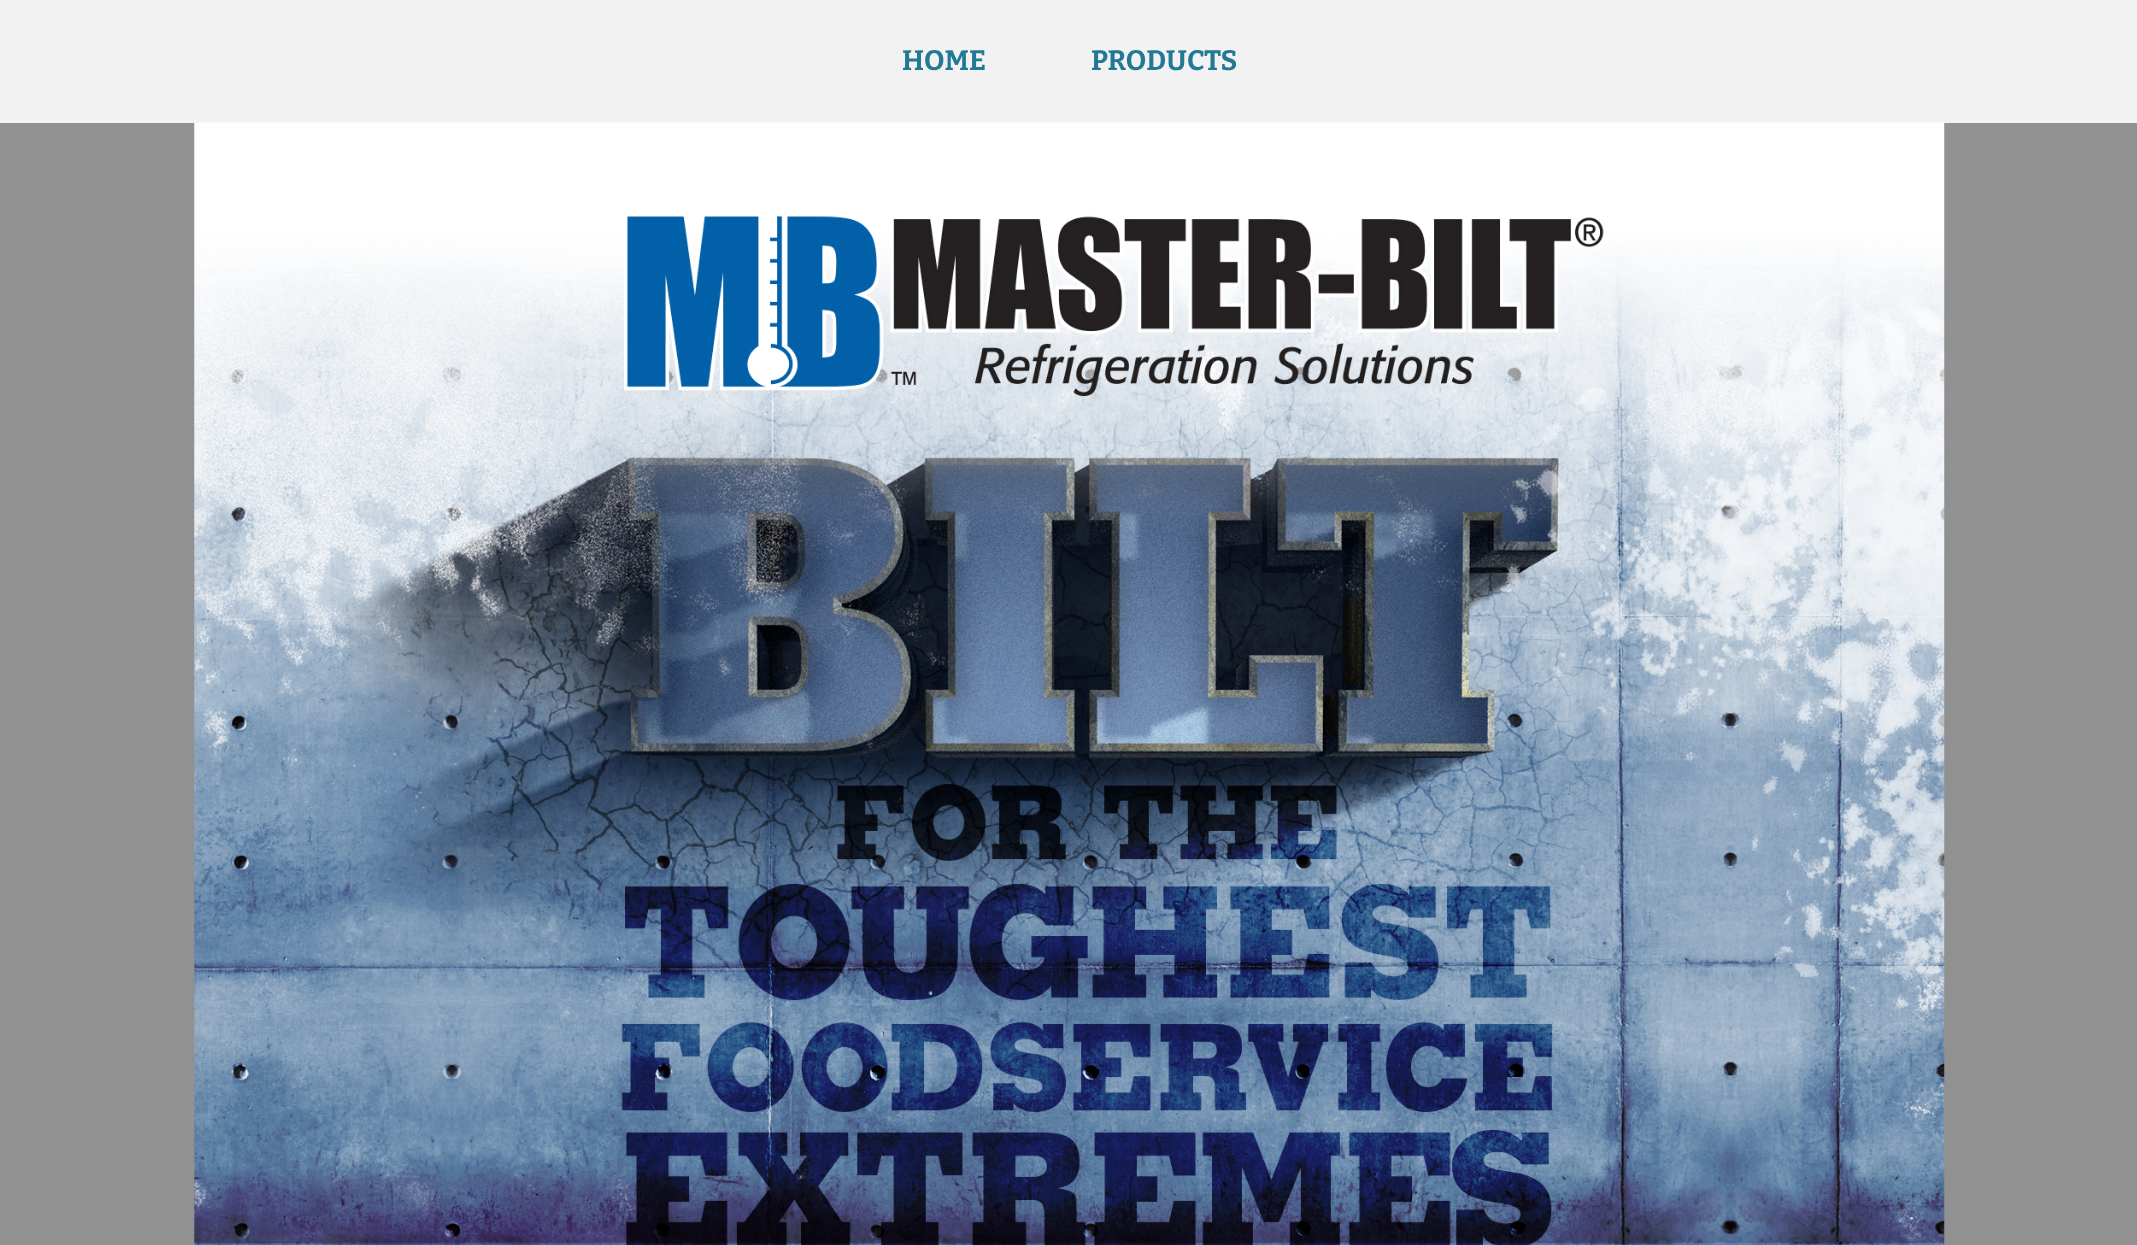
<!DOCTYPE html>
<meta charset="utf-8">
<style>body { margin: 0 } canvas { display: block }</style>
<canvas id="canvas" width="2137" height="1245"></canvas>
<script type="module">
  const canvas = document.getElementById("canvas");
  const ctx = canvas.getContext("2d");
  ctx.miterLimit = 4;
  ctx.fontKerning = "normal";
  async function loadImage(src) {
    const img = new Image();
    img.src = src;
    await img.decode();
    return img;
  }

  ctx.fillStyle = "#919191";
  ctx.fillRect(0, 0, 2137, 1245);
  ctx.fillStyle = "#f2f2f2";
  ctx.fillRect(0, 0, 2137, 123);
  ctx.font = "bold 28px Bitter";
  ctx.fillStyle = "#217996";
  ctx.fillText("HOME", 902, 70);
  ctx.fillText("PRODUCTS", 1091, 70);
  ctx.drawImage(await loadImage("img1.png"), 194, 122, 1751, 1123);
</script>
